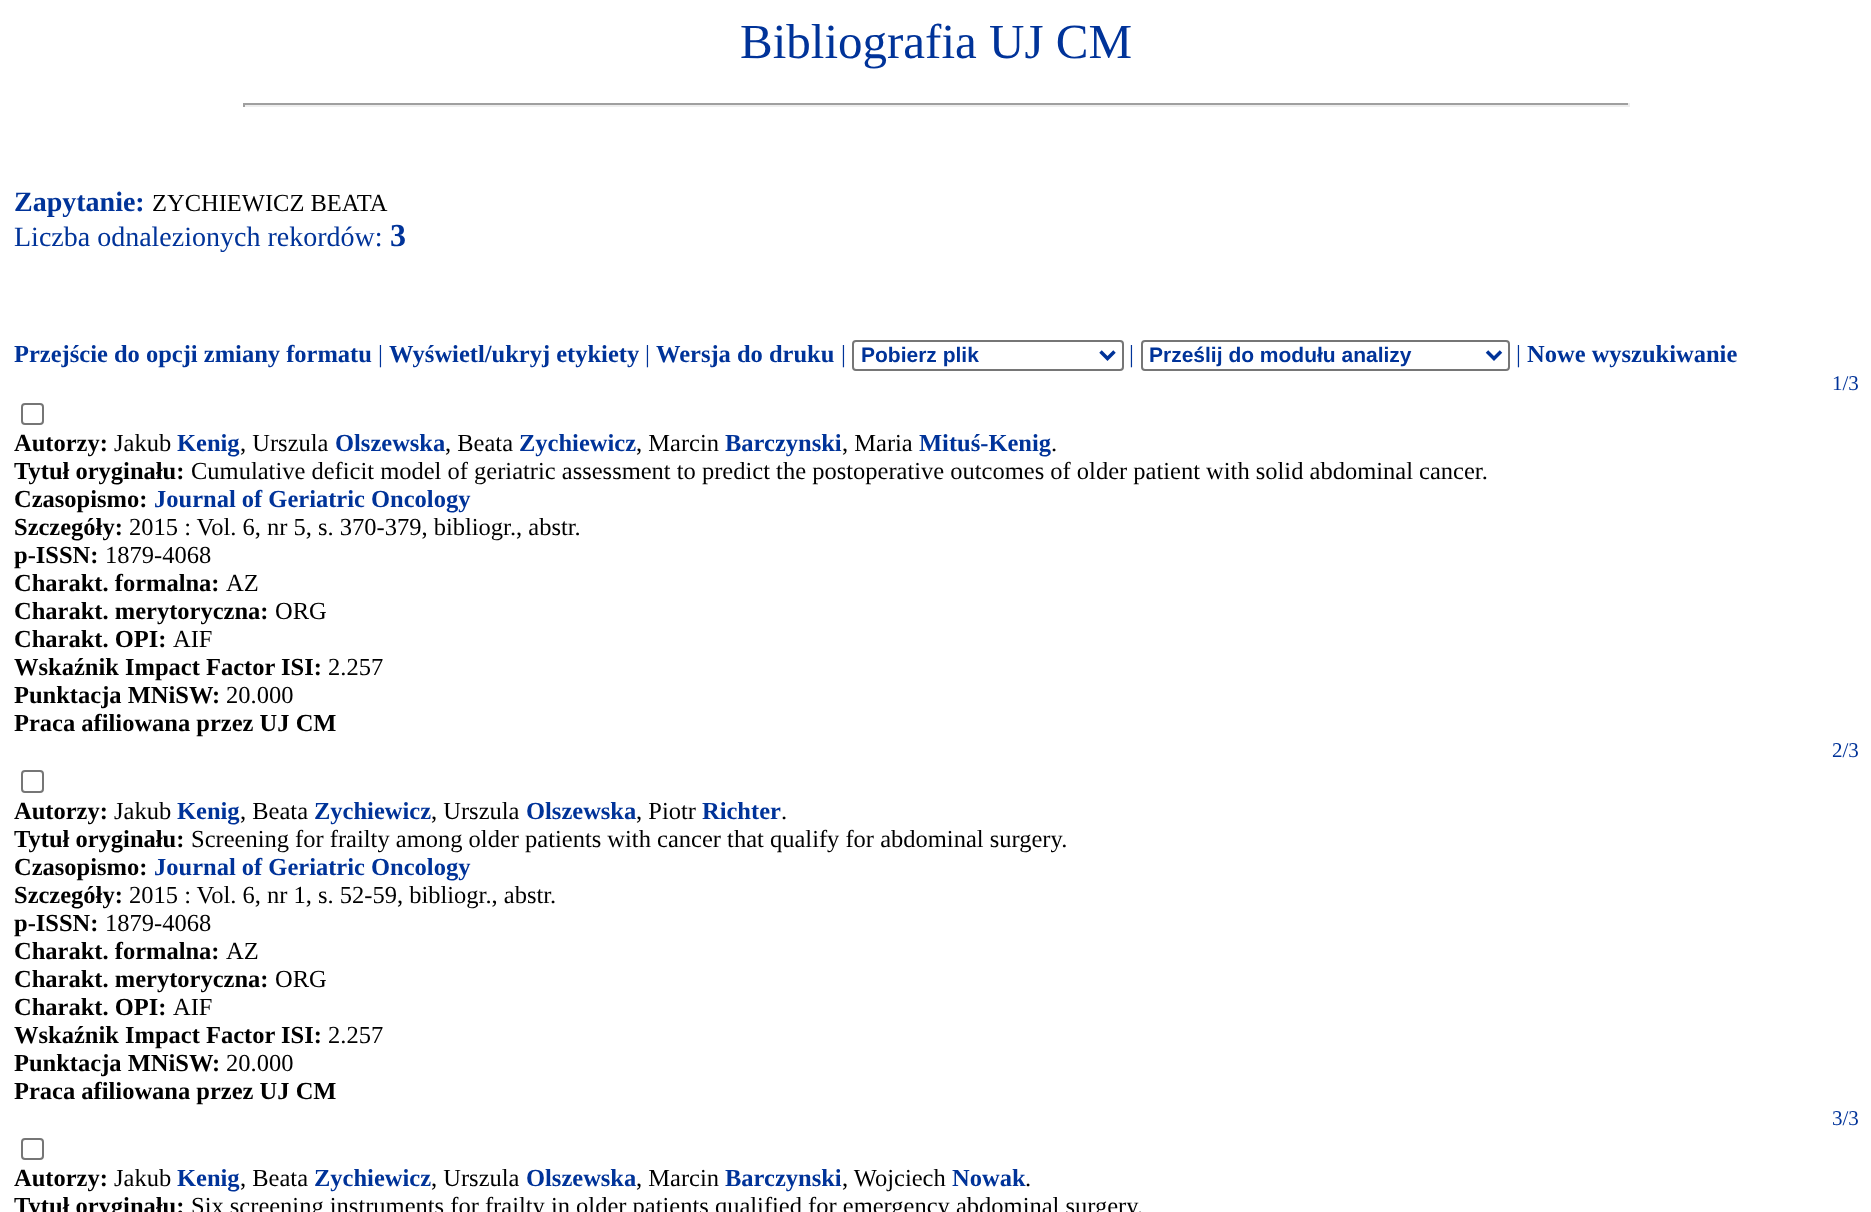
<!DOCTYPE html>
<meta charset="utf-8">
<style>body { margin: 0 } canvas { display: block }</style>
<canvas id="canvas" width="1871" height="1212"></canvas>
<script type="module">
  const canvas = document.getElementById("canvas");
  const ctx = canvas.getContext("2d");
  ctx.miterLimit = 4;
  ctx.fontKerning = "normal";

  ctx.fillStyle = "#ffffff";
  ctx.fillRect(0, 0, 1871, 1212);
  ctx.font = "49px Liberation Serif";
  ctx.fillStyle = "#003399";
  ctx.fillText("Bibliografia UJ CM", 740, 58);
  ctx.fillStyle = "#9f9f9f";
  ctx.fillRect(243, 103, 1386, 2);
  ctx.fillStyle = "#eeeeee";
  ctx.fillRect(1628, 103, 2, 4);
  ctx.fillRect(243, 105, 1386, 2);
  ctx.fillStyle = "#9f9f9f";
  ctx.fillRect(243, 103, 2, 4);
  ctx.font = "bold 28px Liberation Serif";
  ctx.fillStyle = "#003399";
  ctx.fillText("Zapytanie:", 14, 211);
  ctx.font = "24.5px Liberation Serif";
  ctx.fillStyle = "#000000";
  ctx.fillText("ZYCHIEWICZ BEATA", 152, 211);
  ctx.font = "28px Liberation Serif";
  ctx.fillStyle = "#003399";
  ctx.fillText("Liczba odnalezionych rekordów:", 14, 246);
  ctx.font = "bold 32px Liberation Serif";
  ctx.fillText("3", 390, 246);
  ctx.font = "bold 24.5px Liberation Serif";
  ctx.fillText("Przejście do opcji zmiany formatu", 14, 362);
  ctx.font = "24.5px Liberation Serif";
  ctx.fillText("|", 378, 362);
  ctx.font = "bold 24.5px Liberation Serif";
  ctx.fillText("Wyświetl/ukryj etykiety", 389, 362);
  ctx.font = "24.5px Liberation Serif";
  ctx.fillText("|", 645, 362);
  ctx.font = "bold 24.5px Liberation Serif";
  ctx.fillText("Wersja do druku", 656, 362);
  ctx.font = "24.5px Liberation Serif";
  ctx.fillText("|", 841, 362);
  ctx.beginPath();
  ctx.roundRect(853, 341, 270, 29, 3);
  ctx.strokeStyle = "#767676";
  ctx.lineWidth = 2;
  ctx.stroke();
  ctx.beginPath();
  ctx.moveTo(1100.5, 351.5);
  ctx.lineTo(1107.5, 358.5);
  ctx.lineTo(1114.5, 351.5);
  ctx.strokeStyle = "#003399";
  ctx.lineWidth = 3.5;
  ctx.stroke();
  ctx.font = "bold 21px Liberation Sans";
  ctx.fillText("Pobierz plik", 861, 362);
  ctx.font = "24.5px Liberation Serif";
  ctx.fillText("|", 1129, 362);
  ctx.beginPath();
  ctx.roundRect(1142, 341, 367, 29, 3);
  ctx.strokeStyle = "#767676";
  ctx.lineWidth = 2;
  ctx.stroke();
  ctx.beginPath();
  ctx.moveTo(1487, 351.5);
  ctx.lineTo(1494, 358.5);
  ctx.lineTo(1501, 351.5);
  ctx.strokeStyle = "#003399";
  ctx.lineWidth = 3.5;
  ctx.stroke();
  ctx.font = "bold 21px Liberation Sans";
  ctx.fillText("Prześlij do modułu analizy", 1149, 362);
  ctx.font = "24.5px Liberation Serif";
  ctx.fillText("|", 1516, 362);
  ctx.font = "bold 24.5px Liberation Serif";
  ctx.fillText("Nowe wyszukiwanie", 1527, 362);
  ctx.font = "21px Liberation Serif";
  ctx.fillText("1/3", 1832, 390);
  ctx.beginPath();
  ctx.roundRect(22, 404, 21, 20, 3);
  ctx.strokeStyle = "#767676";
  ctx.lineWidth = 2;
  ctx.stroke();
  ctx.font = "bold 24.5px Liberation Serif";
  ctx.fillStyle = "#000000";
  ctx.fillText("Autorzy:", 14, 451);
  ctx.font = "24.5px Liberation Serif";
  ctx.fillText("Jakub", 114, 451);
  ctx.font = "bold 24.5px Liberation Serif";
  ctx.fillStyle = "#003399";
  ctx.fillText("Kenig", 177, 451);
  ctx.font = "24.5px Liberation Serif";
  ctx.fillStyle = "#000000";
  ctx.fillText(", Urszula", 240, 451);
  ctx.font = "bold 24.5px Liberation Serif";
  ctx.fillStyle = "#003399";
  ctx.fillText("Olszewska", 335, 451);
  ctx.font = "24.5px Liberation Serif";
  ctx.fillStyle = "#000000";
  ctx.fillText(", Beata", 445, 451);
  ctx.font = "bold 24.5px Liberation Serif";
  ctx.fillStyle = "#003399";
  ctx.fillText("Zychiewicz", 519, 451);
  ctx.font = "24.5px Liberation Serif";
  ctx.fillStyle = "#000000";
  ctx.fillText(", Marcin", 636, 451);
  ctx.font = "bold 24.5px Liberation Serif";
  ctx.fillStyle = "#003399";
  ctx.fillText("Barczynski", 725, 451);
  ctx.font = "24.5px Liberation Serif";
  ctx.fillStyle = "#000000";
  ctx.fillText(", Maria", 842, 451);
  ctx.font = "bold 24.5px Liberation Serif";
  ctx.fillStyle = "#003399";
  ctx.fillText("Mituś-Kenig", 919, 451);
  ctx.font = "24.5px Liberation Serif";
  ctx.fillStyle = "#000000";
  ctx.fillText(".", 1051, 451);
  ctx.font = "bold 24.5px Liberation Serif";
  ctx.fillText("Tytuł oryginału:", 14, 479);
  ctx.font = "24.5px Liberation Serif";
  ctx.fillText("Cumulative deficit model of geriatric assessment to predict the postoperative outcomes of older patient with solid abdominal cancer.", 191, 479);
  ctx.font = "bold 24.5px Liberation Serif";
  ctx.fillText("Czasopismo:", 14, 507);
  ctx.fillStyle = "#003399";
  ctx.fillText("Journal of Geriatric Oncology", 154, 507);
  ctx.fillStyle = "#000000";
  ctx.fillText("Szczegóły:", 14, 535);
  ctx.font = "24.5px Liberation Serif";
  ctx.fillText("2015 : Vol. 6, nr 5, s. 370-379, bibliogr., abstr.", 129, 535);
  ctx.font = "bold 24.5px Liberation Serif";
  ctx.fillText("p-ISSN:", 14, 563);
  ctx.font = "24.5px Liberation Serif";
  ctx.fillText("1879-4068", 105, 563);
  ctx.font = "bold 24.5px Liberation Serif";
  ctx.fillText("Charakt. formalna:", 14, 591);
  ctx.font = "24.5px Liberation Serif";
  ctx.fillText("AZ", 226, 591);
  ctx.font = "bold 24.5px Liberation Serif";
  ctx.fillText("Charakt. merytoryczna:", 14, 619);
  ctx.font = "24.5px Liberation Serif";
  ctx.fillText("ORG", 275, 619);
  ctx.font = "bold 24.5px Liberation Serif";
  ctx.fillText("Charakt. OPI:", 14, 647);
  ctx.font = "24.5px Liberation Serif";
  ctx.fillText("AIF", 173, 647);
  ctx.font = "bold 24.5px Liberation Serif";
  ctx.fillText("Wskaźnik Impact Factor ISI:", 14, 675);
  ctx.font = "24.5px Liberation Serif";
  ctx.fillText("2.257", 328, 675);
  ctx.font = "bold 24.5px Liberation Serif";
  ctx.fillText("Punktacja MNiSW:", 14, 703);
  ctx.font = "24.5px Liberation Serif";
  ctx.fillText("20.000", 226, 703);
  ctx.font = "bold 24.5px Liberation Serif";
  ctx.fillText("Praca afiliowana przez UJ CM", 14, 731);
  ctx.font = "21px Liberation Serif";
  ctx.fillStyle = "#003399";
  ctx.fillText("2/3", 1832, 757);
  ctx.beginPath();
  ctx.roundRect(22, 771, 21, 21, 3);
  ctx.stroke();
  ctx.font = "bold 24.5px Liberation Serif";
  ctx.fillStyle = "#000000";
  ctx.fillText("Autorzy:", 14, 819);
  ctx.font = "24.5px Liberation Serif";
  ctx.fillText("Jakub", 114, 819);
  ctx.font = "bold 24.5px Liberation Serif";
  ctx.fillStyle = "#003399";
  ctx.fillText("Kenig", 177, 819);
  ctx.font = "24.5px Liberation Serif";
  ctx.fillStyle = "#000000";
  ctx.fillText(", Beata", 240, 819);
  ctx.font = "bold 24.5px Liberation Serif";
  ctx.fillStyle = "#003399";
  ctx.fillText("Zychiewicz", 314, 819);
  ctx.font = "24.5px Liberation Serif";
  ctx.fillStyle = "#000000";
  ctx.fillText(", Urszula", 431, 819);
  ctx.font = "bold 24.5px Liberation Serif";
  ctx.fillStyle = "#003399";
  ctx.fillText("Olszewska", 526, 819);
  ctx.font = "24.5px Liberation Serif";
  ctx.fillStyle = "#000000";
  ctx.fillText(", Piotr", 636, 819);
  ctx.font = "bold 24.5px Liberation Serif";
  ctx.fillStyle = "#003399";
  ctx.fillText("Richter", 702, 819);
  ctx.font = "24.5px Liberation Serif";
  ctx.fillStyle = "#000000";
  ctx.fillText(".", 781, 819);
  ctx.font = "bold 24.5px Liberation Serif";
  ctx.fillText("Tytuł oryginału:", 14, 847);
  ctx.font = "24.5px Liberation Serif";
  ctx.fillText("Screening for frailty among older patients with cancer that qualify for abdominal surgery.", 191, 847);
  ctx.font = "bold 24.5px Liberation Serif";
  ctx.fillText("Czasopismo:", 14, 875);
  ctx.fillStyle = "#003399";
  ctx.fillText("Journal of Geriatric Oncology", 154, 875);
  ctx.fillStyle = "#000000";
  ctx.fillText("Szczegóły:", 14, 903);
  ctx.font = "24.5px Liberation Serif";
  ctx.fillText("2015 : Vol. 6, nr 1, s. 52-59, bibliogr., abstr.", 129, 903);
  ctx.font = "bold 24.5px Liberation Serif";
  ctx.fillText("p-ISSN:", 14, 931);
  ctx.font = "24.5px Liberation Serif";
  ctx.fillText("1879-4068", 105, 931);
  ctx.font = "bold 24.5px Liberation Serif";
  ctx.fillText("Charakt. formalna:", 14, 959);
  ctx.font = "24.5px Liberation Serif";
  ctx.fillText("AZ", 226, 959);
  ctx.font = "bold 24.5px Liberation Serif";
  ctx.fillText("Charakt. merytoryczna:", 14, 987);
  ctx.font = "24.5px Liberation Serif";
  ctx.fillText("ORG", 275, 987);
  ctx.font = "bold 24.5px Liberation Serif";
  ctx.fillText("Charakt. OPI:", 14, 1015);
  ctx.font = "24.5px Liberation Serif";
  ctx.fillText("AIF", 173, 1015);
  ctx.font = "bold 24.5px Liberation Serif";
  ctx.fillText("Wskaźnik Impact Factor ISI:", 14, 1043);
  ctx.font = "24.5px Liberation Serif";
  ctx.fillText("2.257", 328, 1043);
  ctx.font = "bold 24.5px Liberation Serif";
  ctx.fillText("Punktacja MNiSW:", 14, 1071);
  ctx.font = "24.5px Liberation Serif";
  ctx.fillText("20.000", 226, 1071);
  ctx.font = "bold 24.5px Liberation Serif";
  ctx.fillText("Praca afiliowana przez UJ CM", 14, 1099);
  ctx.font = "21px Liberation Serif";
  ctx.fillStyle = "#003399";
  ctx.fillText("3/3", 1832, 1125);
  ctx.beginPath();
  ctx.roundRect(22, 1139, 21, 20, 3);
  ctx.stroke();
  ctx.font = "bold 24.5px Liberation Serif";
  ctx.fillStyle = "#000000";
  ctx.fillText("Autorzy:", 14, 1186);
  ctx.font = "24.5px Liberation Serif";
  ctx.fillText("Jakub", 114, 1186);
  ctx.font = "bold 24.5px Liberation Serif";
  ctx.fillStyle = "#003399";
  ctx.fillText("Kenig", 177, 1186);
  ctx.font = "24.5px Liberation Serif";
  ctx.fillStyle = "#000000";
  ctx.fillText(", Beata", 240, 1186);
  ctx.font = "bold 24.5px Liberation Serif";
  ctx.fillStyle = "#003399";
  ctx.fillText("Zychiewicz", 314, 1186);
  ctx.font = "24.5px Liberation Serif";
  ctx.fillStyle = "#000000";
  ctx.fillText(", Urszula", 431, 1186);
  ctx.font = "bold 24.5px Liberation Serif";
  ctx.fillStyle = "#003399";
  ctx.fillText("Olszewska", 526, 1186);
  ctx.font = "24.5px Liberation Serif";
  ctx.fillStyle = "#000000";
  ctx.fillText(", Marcin", 636, 1186);
  ctx.font = "bold 24.5px Liberation Serif";
  ctx.fillStyle = "#003399";
  ctx.fillText("Barczynski", 725, 1186);
  ctx.font = "24.5px Liberation Serif";
  ctx.fillStyle = "#000000";
  ctx.fillText(", Wojciech", 842, 1186);
  ctx.font = "bold 24.5px Liberation Serif";
  ctx.fillStyle = "#003399";
  ctx.fillText("Nowak", 952, 1186);
  ctx.font = "24.5px Liberation Serif";
  ctx.fillStyle = "#000000";
  ctx.fillText(".", 1025, 1186);
  ctx.font = "bold 24.5px Liberation Serif";
  ctx.fillText("Tytuł oryginału:", 14, 1214);
  ctx.font = "24.5px Liberation Serif";
  ctx.fillText("Six screening instruments for frailty in older patients qualified for emergency abdominal surgery.", 191, 1214);
</script>
